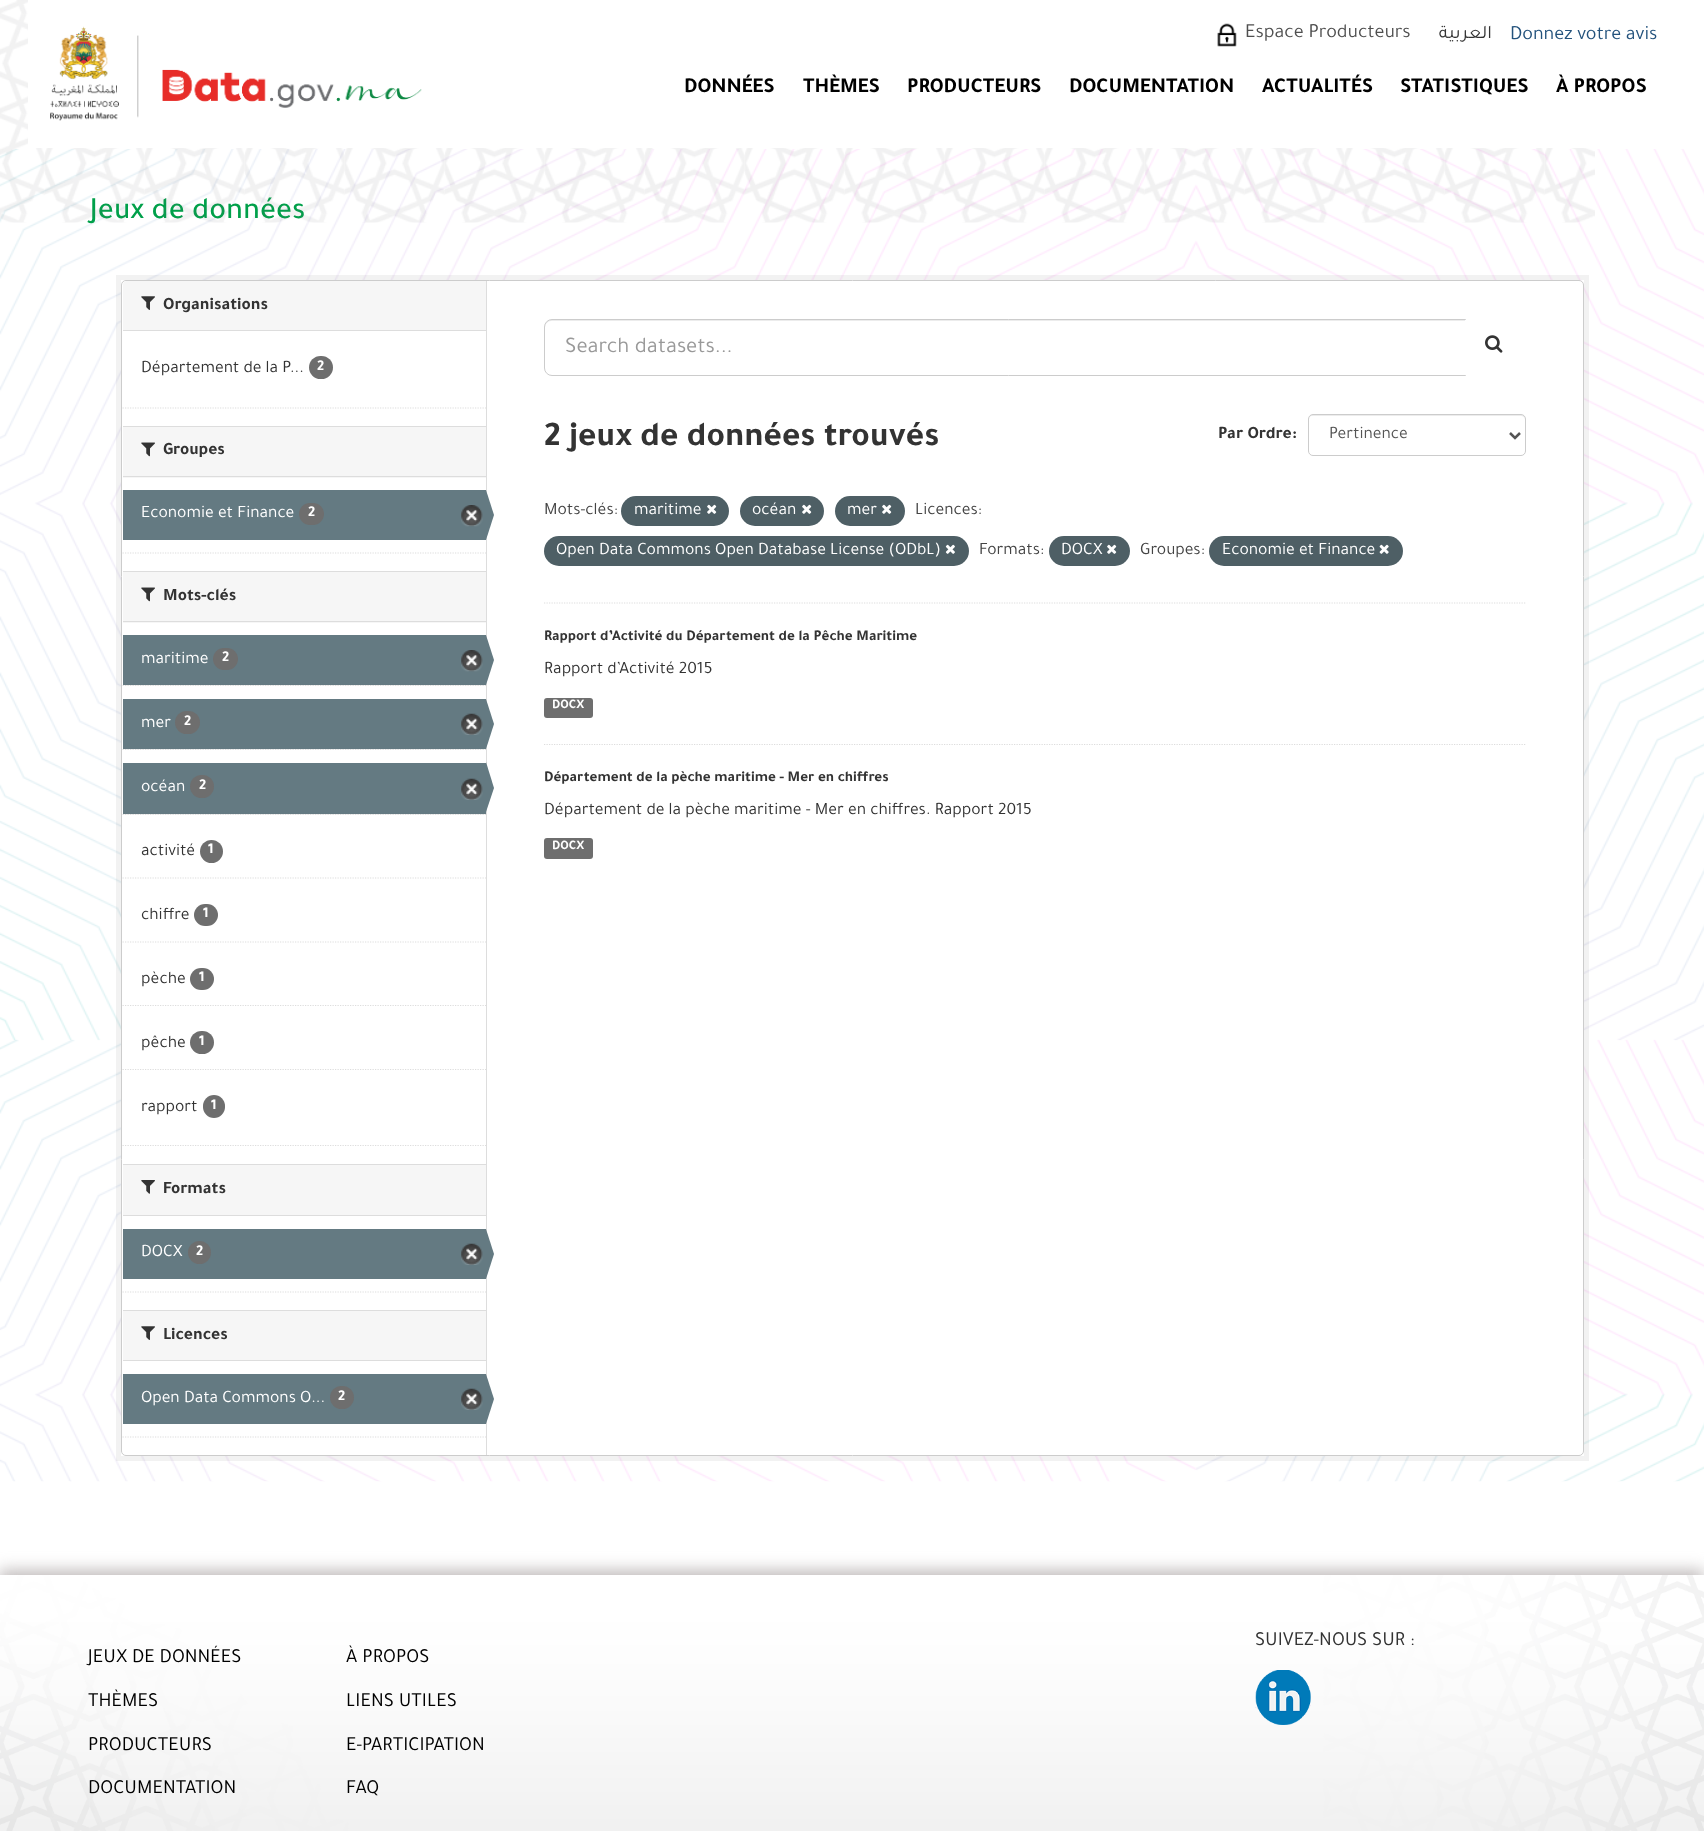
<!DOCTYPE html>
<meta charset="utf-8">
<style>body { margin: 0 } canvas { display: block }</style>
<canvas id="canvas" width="1704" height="1831"></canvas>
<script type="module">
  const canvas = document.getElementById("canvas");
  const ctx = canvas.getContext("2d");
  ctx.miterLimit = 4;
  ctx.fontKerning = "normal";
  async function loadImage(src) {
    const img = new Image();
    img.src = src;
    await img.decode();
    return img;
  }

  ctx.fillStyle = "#ffffff";
  ctx.fillRect(0, 0, 1704, 1831);
  ctx.drawImage(await loadImage("img4.png"), 0, 149, 1704, 1333);
  ctx.font = "500 31.25px Tajawal";
  ctx.fillStyle = "#00a04a";
  ctx.fillText("Jeux de données", 90, 218);
  ctx.drawImage(await loadImage("img1.png"), 0, 0, 1595, 223);
  ctx.fillStyle = "#ffffff";
  ctx.fillRect(28, 0, 1567, 148);
  ctx.drawImage(await loadImage("img2.png"), 50, 26, 372, 95);
  ctx.drawImage(await loadImage("img3.png"), 1217, 23, 20, 24);
  ctx.font = "20px Tajawal";
  ctx.fillStyle = "#4f4f4f";
  ctx.fillText("Espace Producteurs", 1245, 37);
  ctx.direction = "rtl";
  ctx.font = "19px Tajawal";
  ctx.fillStyle = "#333333";
  ctx.fillText("العربية", 1492, 38);
  ctx.direction = "ltr";
  ctx.font = "20px Tajawal";
  ctx.fillStyle = "#23527c";
  ctx.fillText("Donnez votre avis", 1510, 39);
  ctx.font = "bold 21.25px Tajawal";
  ctx.fillStyle = "#000000";
  ctx.fillText("DONNÉES", 684, 92);
  ctx.fillText("THÈMES", 803, 92);
  ctx.fillText("PRODUCTEURS", 907, 92);
  ctx.fillText("DOCUMENTATION", 1069, 92);
  ctx.fillText("ACTUALITÉS", 1262, 92);
  ctx.fillText("STATISTIQUES", 1400, 92);
  ctx.fillText("À PROPOS", 1556, 92);
  ctx.strokeStyle = "rgba(0, 0, 0, 0.05)";
  ctx.lineWidth = 5;
  ctx.strokeRect(118.5, 277.5, 1468, 1181);
  ctx.fillStyle = "#ffffff";
  ctx.beginPath();
  ctx.roundRect(121.5, 280.5, 1462, 1175, 4.5);
  ctx.fill();
  ctx.strokeStyle = "#cccccc";
  ctx.lineWidth = 1;
  ctx.stroke();
  ctx.fillStyle = "#f6f6f6";
  ctx.beginPath();
  ctx.roundRect(123, 281, 363, 50, [4, 0, 0, 0]);
  ctx.fill();
  ctx.fillStyle = "#dddddd";
  ctx.fillRect(123, 330, 363, 1);
  ctx.drawImage(await loadImage("img5.png"), 141, 296, 14, 14);
  ctx.font = "bold 17.5px Tajawal";
  ctx.fillStyle = "#333333";
  ctx.fillText("Organisations", 163, 309);
  ctx.font = "17.5px Tajawal";
  ctx.fillText("Département de la P...", 141, 372);
  ctx.fillStyle = "#6e6e6e";
  ctx.beginPath();
  ctx.roundRect(309, 356, 24, 23, 11.5);
  ctx.fill();
  ctx.font = "bold 15px Tajawal";
  ctx.fillStyle = "#ffffff";
  ctx.fillText("2", 317, 370);
  ctx.beginPath();
  ctx.moveTo(122.5, 408);
  ctx.lineTo(486, 408);
  ctx.strokeStyle = "#dddddd";
  ctx.lineWidth = 1.2;
  ctx.setLineDash([1.25, 1.25]);
  ctx.stroke();
  ctx.fillStyle = "#f6f6f6";
  ctx.fillRect(123, 427, 363, 51);
  ctx.fillStyle = "#dddddd";
  ctx.fillRect(123, 426, 363, 1);
  ctx.fillRect(123, 476, 363, 1);
  ctx.drawImage(await loadImage("img6.png"), 141, 442, 14, 15);
  ctx.font = "bold 17.5px Tajawal";
  ctx.fillStyle = "#333333";
  ctx.fillText("Groupes", 163, 454);
  ctx.fillStyle = "#647a82";
  ctx.fillRect(123, 490, 363, 50);
  ctx.font = "17.5px Tajawal";
  ctx.fillStyle = "#ffffff";
  ctx.fillText("Economie et Finance", 141, 517);
  ctx.fillStyle = "#6e6e6e";
  ctx.beginPath();
  ctx.roundRect(299, 503, 25, 22, 11);
  ctx.fill();
  ctx.font = "bold 15px Tajawal";
  ctx.fillStyle = "#ffffff";
  ctx.fillText("2", 308, 516);
  ctx.drawImage(await loadImage("img7.png"), 461, 505, 22, 22);
  ctx.fillStyle = "#dddddd";
  ctx.fillRect(486, 281, 1, 1174);
  ctx.fillStyle = "#647a82";
  ctx.beginPath();
  ctx.moveTo(486, 540);
  ctx.lineTo(486, 490);
  ctx.lineTo(494, 515);
  ctx.closePath();
  ctx.fill();
  ctx.beginPath();
  ctx.moveTo(122.5, 553);
  ctx.lineTo(486, 553);
  ctx.stroke();
  ctx.fillStyle = "#f6f6f6";
  ctx.fillRect(123, 572, 363, 51);
  ctx.fillStyle = "#dddddd";
  ctx.fillRect(123, 571, 363, 1);
  ctx.fillRect(123, 621, 363, 1);
  ctx.drawImage(await loadImage("img6.png"), 141, 587, 14, 15);
  ctx.font = "bold 17.5px Tajawal";
  ctx.fillStyle = "#333333";
  ctx.fillText("Mots-clés", 163, 600);
  ctx.fillStyle = "#f6f6f6";
  ctx.fillRect(123, 685, 362, 1);
  ctx.beginPath();
  ctx.moveTo(122.5, 685.5);
  ctx.lineTo(486, 685.5);
  ctx.stroke();
  ctx.fillStyle = "#647a82";
  ctx.fillRect(123, 635, 363, 50);
  ctx.font = "17.5px Tajawal";
  ctx.fillStyle = "#ffffff";
  ctx.fillText("maritime", 141, 663);
  ctx.fillStyle = "#6e6e6e";
  ctx.beginPath();
  ctx.roundRect(213, 648, 25, 22, 11);
  ctx.fill();
  ctx.font = "bold 15px Tajawal";
  ctx.fillStyle = "#ffffff";
  ctx.fillText("2", 222, 661);
  ctx.drawImage(await loadImage("img7.png"), 461, 650, 22, 22);
  ctx.fillStyle = "#647a82";
  ctx.beginPath();
  ctx.moveTo(486, 685);
  ctx.lineTo(486, 635);
  ctx.lineTo(494, 660);
  ctx.closePath();
  ctx.fill();
  ctx.fillStyle = "#f6f6f6";
  ctx.fillRect(123, 749, 362, 1);
  ctx.beginPath();
  ctx.moveTo(122.5, 749.5);
  ctx.lineTo(486, 749.5);
  ctx.stroke();
  ctx.fillStyle = "#647a82";
  ctx.fillRect(123, 699, 363, 50);
  ctx.font = "17.5px Tajawal";
  ctx.fillStyle = "#ffffff";
  ctx.fillText("mer", 141, 727);
  ctx.fillStyle = "#6e6e6e";
  ctx.beginPath();
  ctx.roundRect(175, 711, 25, 23, 11.5);
  ctx.fill();
  ctx.font = "bold 15px Tajawal";
  ctx.fillStyle = "#ffffff";
  ctx.fillText("2", 184, 725);
  ctx.drawImage(await loadImage("img8.png"), 461, 713, 22, 22);
  ctx.fillStyle = "#647a82";
  ctx.beginPath();
  ctx.moveTo(486, 749);
  ctx.lineTo(486, 699);
  ctx.lineTo(494, 724);
  ctx.closePath();
  ctx.fill();
  ctx.fillStyle = "#f6f6f6";
  ctx.fillRect(123, 814, 362, 1);
  ctx.beginPath();
  ctx.moveTo(122.5, 814.5);
  ctx.lineTo(486, 814.5);
  ctx.stroke();
  ctx.fillStyle = "#647a82";
  ctx.fillRect(123, 763, 363, 51);
  ctx.font = "17.5px Tajawal";
  ctx.fillStyle = "#ffffff";
  ctx.fillText("océan", 141, 791);
  ctx.fillStyle = "#6e6e6e";
  ctx.beginPath();
  ctx.roundRect(190, 775, 24, 23, 11.5);
  ctx.fill();
  ctx.font = "bold 15px Tajawal";
  ctx.fillStyle = "#ffffff";
  ctx.fillText("2", 199, 789);
  ctx.drawImage(await loadImage("img9.png"), 461, 778, 22, 22);
  ctx.fillStyle = "#647a82";
  ctx.beginPath();
  ctx.moveTo(486, 812);
  ctx.lineTo(486, 762);
  ctx.lineTo(494, 788);
  ctx.closePath();
  ctx.fill();
  ctx.beginPath();
  ctx.moveTo(122.5, 878);
  ctx.lineTo(486, 878);
  ctx.stroke();
  ctx.font = "17.5px Tajawal";
  ctx.fillStyle = "#333333";
  ctx.fillText("activité", 141, 855);
  ctx.fillStyle = "#6e6e6e";
  ctx.beginPath();
  ctx.arc(211.5, 851.5, 11.5, 0, Math.PI * 2);
  ctx.fill();
  ctx.font = "bold 15px Tajawal";
  ctx.fillStyle = "#ffffff";
  ctx.fillText("1", 208, 853);
  ctx.beginPath();
  ctx.moveTo(122.5, 942);
  ctx.lineTo(486, 942);
  ctx.stroke();
  ctx.font = "17.5px Tajawal";
  ctx.fillStyle = "#333333";
  ctx.fillText("chiffre", 141, 919);
  ctx.fillStyle = "#6e6e6e";
  ctx.beginPath();
  ctx.roundRect(194, 904, 24, 22, 11);
  ctx.fill();
  ctx.font = "bold 15px Tajawal";
  ctx.fillStyle = "#ffffff";
  ctx.fillText("1", 203, 917);
  ctx.beginPath();
  ctx.moveTo(122.5, 1005.5);
  ctx.lineTo(486, 1005.5);
  ctx.stroke();
  ctx.font = "17.5px Tajawal";
  ctx.fillStyle = "#333333";
  ctx.fillText("pèche", 141, 983);
  ctx.fillStyle = "#6e6e6e";
  ctx.beginPath();
  ctx.roundRect(190, 968, 24, 22, 11);
  ctx.fill();
  ctx.font = "bold 15px Tajawal";
  ctx.fillStyle = "#ffffff";
  ctx.fillText("1", 199, 981);
  ctx.beginPath();
  ctx.moveTo(122.5, 1069.5);
  ctx.lineTo(486, 1069.5);
  ctx.stroke();
  ctx.font = "17.5px Tajawal";
  ctx.fillStyle = "#333333";
  ctx.fillText("pêche", 141, 1047);
  ctx.fillStyle = "#6e6e6e";
  ctx.beginPath();
  ctx.roundRect(190, 1031, 24, 23, 11.5);
  ctx.fill();
  ctx.font = "bold 15px Tajawal";
  ctx.fillStyle = "#ffffff";
  ctx.fillText("1", 199, 1045);
  ctx.font = "17.5px Tajawal";
  ctx.fillStyle = "#333333";
  ctx.fillText("rapport", 141, 1111);
  ctx.fillStyle = "#6e6e6e";
  ctx.beginPath();
  ctx.roundRect(203, 1095, 22, 23, 11);
  ctx.fill();
  ctx.font = "bold 15px Tajawal";
  ctx.fillStyle = "#ffffff";
  ctx.fillText("1", 211, 1109);
  ctx.beginPath();
  ctx.moveTo(122.5, 1145.5);
  ctx.lineTo(486, 1145.5);
  ctx.stroke();
  ctx.fillStyle = "#f6f6f6";
  ctx.fillRect(123, 1165, 363, 50);
  ctx.fillStyle = "#dddddd";
  ctx.fillRect(123, 1164, 363, 1);
  ctx.fillRect(123, 1215, 363, 1);
  ctx.drawImage(await loadImage("img10.png"), 141, 1180, 14, 14);
  ctx.font = "bold 17.5px Tajawal";
  ctx.fillStyle = "#333333";
  ctx.fillText("Formats", 163, 1193);
  ctx.fillStyle = "#647a82";
  ctx.fillRect(123, 1229, 363, 50);
  ctx.font = "17.5px Tajawal";
  ctx.fillStyle = "#ffffff";
  ctx.fillText("DOCX", 141, 1256);
  ctx.fillStyle = "#6e6e6e";
  ctx.beginPath();
  ctx.arc(199.5, 1252.5, 11.5, 0, Math.PI * 2);
  ctx.fill();
  ctx.font = "bold 15px Tajawal";
  ctx.fillStyle = "#ffffff";
  ctx.fillText("2", 196, 1255);
  ctx.drawImage(await loadImage("img8.png"), 461, 1243, 22, 22);
  ctx.fillStyle = "#647a82";
  ctx.beginPath();
  ctx.moveTo(486, 1279);
  ctx.lineTo(486, 1229);
  ctx.lineTo(494, 1254);
  ctx.closePath();
  ctx.fill();
  ctx.beginPath();
  ctx.moveTo(122.5, 1292);
  ctx.lineTo(486, 1292);
  ctx.stroke();
  ctx.fillStyle = "#f6f6f6";
  ctx.fillRect(123, 1311, 363, 49);
  ctx.fillStyle = "#dddddd";
  ctx.fillRect(123, 1310, 363, 1);
  ctx.fillRect(123, 1360, 363, 1);
  ctx.drawImage(await loadImage("img5.png"), 141, 1326, 14, 14);
  ctx.font = "bold 17.5px Tajawal";
  ctx.fillStyle = "#333333";
  ctx.fillText("Licences", 163, 1339);
  ctx.fillStyle = "#647a82";
  ctx.fillRect(123, 1374, 363, 50);
  ctx.font = "17.5px Tajawal";
  ctx.fillStyle = "#ffffff";
  ctx.fillText("Open Data Commons O...", 141, 1402);
  ctx.fillStyle = "#6e6e6e";
  ctx.beginPath();
  ctx.roundRect(330, 1386, 24, 23, 11.5);
  ctx.fill();
  ctx.font = "bold 15px Tajawal";
  ctx.fillStyle = "#ffffff";
  ctx.fillText("2", 338, 1400);
  ctx.drawImage(await loadImage("img8.png"), 461, 1388, 22, 22);
  ctx.fillStyle = "#647a82";
  ctx.beginPath();
  ctx.moveTo(486, 1424);
  ctx.lineTo(486, 1374);
  ctx.lineTo(494, 1399);
  ctx.closePath();
  ctx.fill();
  ctx.beginPath();
  ctx.moveTo(122.5, 1437);
  ctx.lineTo(486, 1437);
  ctx.stroke();
  ctx.beginPath();
  ctx.moveTo(544, 603);
  ctx.lineTo(1526, 603);
  ctx.stroke();
  ctx.fillStyle = "#ececec";
  ctx.beginPath();
  ctx.moveTo(551, 321);
  ctx.lineTo(1465, 321);
  ctx.lineTo(1465, 320);
  ctx.lineTo(551, 320);
  ctx.bezierCurveTo(546, 320, 545, 324, 545, 328);
  ctx.bezierCurveTo(545, 324, 548, 321, 551, 321);
  ctx.closePath();
  ctx.fill();
  ctx.beginPath();
  ctx.roundRect(544.5, 319.5, 921, 56, [7.5, 0, 0, 7.5]);
  ctx.strokeStyle = "#cccccc";
  ctx.lineWidth = 1;
  ctx.setLineDash([]);
  ctx.stroke();
  ctx.font = "22.5px Tajawal";
  ctx.fillStyle = "#999999";
  ctx.fillText("Search datasets...", 565, 352);
  ctx.fillStyle = "#ffffff";
  ctx.beginPath();
  ctx.roundRect(1465, 320, 61, 55, [0, 8, 8, 0]);
  ctx.fill();
  ctx.drawImage(await loadImage("img11.png"), 1485, 335, 18, 18);
  ctx.font = "bold 35px Tajawal";
  ctx.fillStyle = "#333333";
  ctx.fillText("2 jeux de données trouvés", 544, 445);
  ctx.font = "bold 17.5px Tajawal";
  ctx.fillText("Par Ordre:", 1218, 438);
  ctx.fillStyle = "#ececec";
  ctx.beginPath();
  ctx.moveTo(1312, 416);
  ctx.lineTo(1521, 416);
  ctx.bezierCurveTo(1523, 416, 1525, 418, 1525, 420);
  ctx.bezierCurveTo(1525, 417, 1524, 415, 1521, 415);
  ctx.lineTo(1311, 415);
  ctx.bezierCurveTo(1309, 416, 1309, 418, 1309, 420);
  ctx.bezierCurveTo(1309, 418, 1310, 416, 1312, 416);
  ctx.closePath();
  ctx.fill();
  ctx.beginPath();
  ctx.roundRect(1308.5, 414.5, 217, 41, 4.5);
  ctx.stroke();
  ctx.beginPath();
  ctx.moveTo(1510, 433);
  ctx.lineTo(1515, 438);
  ctx.lineTo(1520, 433);
  ctx.strokeStyle = "#555555";
  ctx.lineWidth = 2.5;
  ctx.stroke();
  ctx.font = "17.5px Tajawal";
  ctx.fillStyle = "#555555";
  ctx.fillText("Pertinence", 1329, 438);
  ctx.fillStyle = "#444444";
  ctx.fillText("Mots-clés:", 544, 514);
  ctx.fillStyle = "#4e5f65";
  ctx.beginPath();
  ctx.roundRect(621, 496, 108, 30, 15);
  ctx.fill();
  ctx.fillStyle = "#ffffff";
  ctx.fillText("maritime", 634, 514);
  ctx.drawImage(await loadImage("img12.png"), 707, 504, 10, 10);
  ctx.fillStyle = "#4e5f65";
  ctx.beginPath();
  ctx.roundRect(740, 496, 84, 30, 15);
  ctx.fill();
  ctx.fillStyle = "#ffffff";
  ctx.fillText("océan", 752, 514);
  ctx.drawImage(await loadImage("img12.png"), 802, 504, 10, 10);
  ctx.fillStyle = "#4e5f65";
  ctx.beginPath();
  ctx.roundRect(835, 496, 70, 30, 15);
  ctx.fill();
  ctx.fillStyle = "#ffffff";
  ctx.fillText("mer", 847, 514);
  ctx.drawImage(await loadImage("img12.png"), 882, 504, 10, 10);
  ctx.fillStyle = "#444444";
  ctx.fillText("Licences:", 915, 514);
  ctx.fillStyle = "#4e5f65";
  ctx.beginPath();
  ctx.roundRect(544, 536, 425, 30, 15);
  ctx.fill();
  ctx.fillStyle = "#ffffff";
  ctx.fillText("Open Data Commons Open Database License (ODbL)", 556, 554);
  ctx.drawImage(await loadImage("img13.png"), 945, 544, 10, 10);
  ctx.fillStyle = "#444444";
  ctx.fillText("Formats:", 979, 554);
  ctx.fillStyle = "#4e5f65";
  ctx.beginPath();
  ctx.roundRect(1049, 536, 81, 30, 15);
  ctx.fill();
  ctx.fillStyle = "#ffffff";
  ctx.fillText("DOCX", 1061, 554);
  ctx.drawImage(await loadImage("img12.png"), 1107, 544, 10, 10);
  ctx.fillStyle = "#444444";
  ctx.fillText("Groupes:", 1140, 554);
  ctx.fillStyle = "#4e5f65";
  ctx.beginPath();
  ctx.roundRect(1209, 536, 194, 30, 15);
  ctx.fill();
  ctx.fillStyle = "#ffffff";
  ctx.fillText("Economie et Finance", 1222, 554);
  ctx.drawImage(await loadImage("img14.png"), 1379, 544, 10, 10);
  ctx.beginPath();
  ctx.moveTo(544, 744.5);
  ctx.lineTo(1526, 744.5);
  ctx.strokeStyle = "#dddddd";
  ctx.lineWidth = 1.2;
  ctx.setLineDash([1.25, 1.25]);
  ctx.stroke();
  ctx.font = "bold 15px Tajawal";
  ctx.fillStyle = "#333333";
  ctx.fillText("Rapport d’Activité du Département de la Pêche Maritime", 544, 640);
  ctx.font = "17.5px Tajawal";
  ctx.fillText("Rapport d’Activité 2015", 544, 673);
  ctx.fillStyle = "#6e6e6e";
  ctx.beginPath();
  ctx.roundRect(544, 698, 49, 20, 3);
  ctx.fill();
  ctx.font = "bold 13px Tajawal";
  ctx.fillStyle = "#ffffff";
  ctx.fillText("DOCX", 552, 708);
  ctx.font = "bold 15px Tajawal";
  ctx.fillStyle = "#333333";
  ctx.fillText("Département de la pèche maritime - Mer en chiffres", 544, 781);
  ctx.font = "17.5px Tajawal";
  ctx.fillText("Département de la pèche maritime - Mer en chiffres. Rapport 2015", 544, 814);
  ctx.fillStyle = "#6e6e6e";
  ctx.beginPath();
  ctx.roundRect(544, 838, 49, 21, 3);
  ctx.fill();
  ctx.font = "bold 13px Tajawal";
  ctx.fillStyle = "#ffffff";
  ctx.fillText("DOCX", 552, 849);
  ctx.fillStyle = "rgba(171, 164, 164, 0.75)";
  ctx.filter = "blur(8px)";
  ctx.beginPath();
  ctx.rect(-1, 1570, 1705, 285);
  ctx.fill();
  ctx.filter = "none";
  ctx.drawImage(await loadImage("img15.png"), 0, 1575, 1704, 256);
  ctx.font = "20px Tajawal";
  ctx.fillStyle = "#333333";
  ctx.fillText("SUIVEZ-NOUS SUR :", 1255, 1645);
  ctx.drawImage(await loadImage("img16.png"), 1255, 1670, 56, 55);
  ctx.fillStyle = "#000000";
  ctx.fillText("JEUX DE DONNÉES", 88, 1662);
  ctx.fillText("THÈMES", 88, 1706);
  ctx.fillText("PRODUCTEURS", 88, 1750);
  ctx.fillText("DOCUMENTATION", 88, 1793);
  ctx.fillText("À PROPOS", 346, 1662);
  ctx.fillText("LIENS UTILES", 346, 1706);
  ctx.fillText("E-PARTICIPATION", 346, 1750);
  ctx.fillText("FAQ", 346, 1793);
</script>
